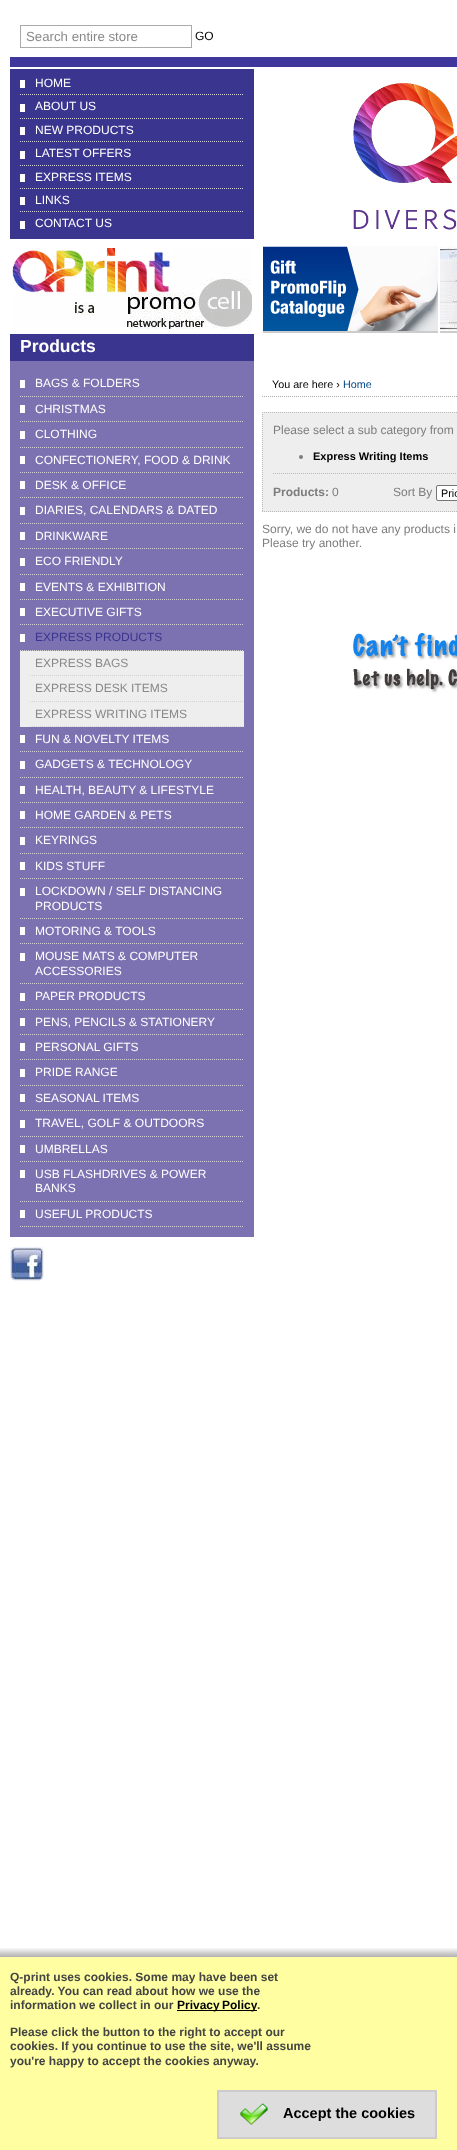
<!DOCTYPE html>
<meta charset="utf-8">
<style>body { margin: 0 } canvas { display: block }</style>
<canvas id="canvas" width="457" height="2150"></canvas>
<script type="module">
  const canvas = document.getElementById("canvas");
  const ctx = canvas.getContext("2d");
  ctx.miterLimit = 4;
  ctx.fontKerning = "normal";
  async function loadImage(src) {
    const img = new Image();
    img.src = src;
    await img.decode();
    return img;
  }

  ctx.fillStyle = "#ffffff";
  ctx.fillRect(0, 0, 457, 2150);
  ctx.fillStyle = "#3f379c";
  ctx.fillRect(10, 57, 447, 10);
  ctx.strokeStyle = "#aaaaaa";
  ctx.strokeRect(20.5, 25.5, 171, 22);
  ctx.font = "13.25px Liberation Sans";
  ctx.fillStyle = "#888888";
  ctx.fillText("Search entire store", 26, 41);
  ctx.font = "12px Liberation Sans";
  ctx.fillStyle = "#000000";
  ctx.fillText("GO", 195, 40);
  ctx.fillStyle = "#3a358f";
  ctx.fillRect(10, 69, 244, 170);
  ctx.fillStyle = "#ffffff";
  ctx.fillRect(20, 80, 5, 8);
  ctx.beginPath();
  ctx.moveTo(20, 94.5);
  ctx.lineTo(244, 94.5);
  ctx.strokeStyle = "#d3d3d3";
  ctx.setLineDash([1, 1]);
  ctx.stroke();
  ctx.fillText("HOME", 35, 87);
  ctx.fillRect(20, 104, 5, 8);
  ctx.beginPath();
  ctx.moveTo(20, 118.5);
  ctx.lineTo(244, 118.5);
  ctx.stroke();
  ctx.fillText("ABOUT US", 35, 110);
  ctx.fillRect(20, 127, 5, 8);
  ctx.beginPath();
  ctx.moveTo(20, 141.5);
  ctx.lineTo(244, 141.5);
  ctx.stroke();
  ctx.fillText("NEW PRODUCTS", 35, 134);
  ctx.fillRect(20, 151, 5, 8);
  ctx.beginPath();
  ctx.moveTo(20, 165.5);
  ctx.lineTo(244, 165.5);
  ctx.stroke();
  ctx.fillText("LATEST OFFERS", 35, 157);
  ctx.fillRect(20, 174, 5, 8);
  ctx.beginPath();
  ctx.moveTo(20, 188.5);
  ctx.lineTo(244, 188.5);
  ctx.stroke();
  ctx.fillText("EXPRESS ITEMS", 35, 181);
  ctx.fillRect(20, 197, 5, 8);
  ctx.beginPath();
  ctx.moveTo(20, 211.5);
  ctx.lineTo(244, 211.5);
  ctx.stroke();
  ctx.fillText("LINKS", 35, 204);
  ctx.fillRect(20, 221, 5, 8);
  ctx.fillText("CONTACT US", 35, 227);
  ctx.drawImage(await loadImage("img1.png"), 12, 248, 240, 81);
  ctx.fillStyle = "#3a358f";
  ctx.fillRect(10, 334, 244, 27);
  ctx.font = "bold 17.5px Liberation Sans";
  ctx.fillStyle = "#ffffff";
  ctx.fillText("Products", 20, 352);
  ctx.fillStyle = "#7c72b1";
  ctx.fillRect(10, 361, 244, 876);
  ctx.fillStyle = "#ffffff";
  ctx.fillRect(20, 380, 5, 8);
  ctx.beginPath();
  ctx.moveTo(20, 396.5);
  ctx.lineTo(244, 396.5);
  ctx.stroke();
  ctx.font = "12px Liberation Sans";
  ctx.fillText("BAGS & FOLDERS", 35, 387);
  ctx.fillRect(20, 405, 5, 8);
  ctx.beginPath();
  ctx.moveTo(20, 421.5);
  ctx.lineTo(244, 421.5);
  ctx.stroke();
  ctx.fillText("CHRISTMAS", 35, 413);
  ctx.fillRect(20, 431, 5, 8);
  ctx.beginPath();
  ctx.moveTo(20, 447.5);
  ctx.lineTo(244, 447.5);
  ctx.stroke();
  ctx.fillText("CLOTHING", 35, 438);
  ctx.fillRect(20, 456, 5, 8);
  ctx.beginPath();
  ctx.moveTo(20, 472.5);
  ctx.lineTo(244, 472.5);
  ctx.stroke();
  ctx.fillText("CONFECTIONERY, FOOD & DRINK", 35, 464);
  ctx.fillRect(20, 481, 5, 8);
  ctx.beginPath();
  ctx.moveTo(20, 497.5);
  ctx.lineTo(244, 497.5);
  ctx.stroke();
  ctx.fillText("DESK & OFFICE", 35, 489);
  ctx.fillRect(20, 507, 5, 8);
  ctx.beginPath();
  ctx.moveTo(20, 523.5);
  ctx.lineTo(244, 523.5);
  ctx.stroke();
  ctx.fillText("DIARIES, CALENDARS & DATED", 35, 514);
  ctx.fillRect(20, 532, 5, 8);
  ctx.beginPath();
  ctx.moveTo(20, 548.5);
  ctx.lineTo(244, 548.5);
  ctx.stroke();
  ctx.fillText("DRINKWARE", 35, 540);
  ctx.fillRect(20, 558, 5, 8);
  ctx.beginPath();
  ctx.moveTo(20, 574.5);
  ctx.lineTo(244, 574.5);
  ctx.stroke();
  ctx.fillText("ECO FRIENDLY", 35, 565);
  ctx.fillRect(20, 583, 5, 8);
  ctx.beginPath();
  ctx.moveTo(20, 599.5);
  ctx.lineTo(244, 599.5);
  ctx.stroke();
  ctx.fillText("EVENTS & EXHIBITION", 35, 591);
  ctx.fillRect(20, 608, 5, 8);
  ctx.beginPath();
  ctx.moveTo(20, 624.5);
  ctx.lineTo(244, 624.5);
  ctx.stroke();
  ctx.fillText("EXECUTIVE GIFTS", 35, 616);
  ctx.fillRect(20, 634, 5, 8);
  ctx.beginPath();
  ctx.moveTo(20, 650.5);
  ctx.lineTo(244, 650.5);
  ctx.stroke();
  ctx.fillStyle = "#3a358f";
  ctx.fillText("EXPRESS PRODUCTS", 35, 641);
  ctx.fillStyle = "#eeeeee";
  ctx.fillRect(20, 651, 224, 76);
  ctx.beginPath();
  ctx.moveTo(30, 675.5);
  ctx.lineTo(244, 675.5);
  ctx.stroke();
  ctx.fillStyle = "#888888";
  ctx.fillText("EXPRESS BAGS", 35, 667);
  ctx.beginPath();
  ctx.moveTo(30, 701.5);
  ctx.lineTo(244, 701.5);
  ctx.stroke();
  ctx.fillText("EXPRESS DESK ITEMS", 35, 692);
  ctx.beginPath();
  ctx.moveTo(30, 726.5);
  ctx.lineTo(244, 726.5);
  ctx.stroke();
  ctx.fillText("EXPRESS WRITING ITEMS", 35, 718);
  ctx.fillStyle = "#ffffff";
  ctx.fillRect(20, 735, 5, 8);
  ctx.beginPath();
  ctx.moveTo(20, 751.5);
  ctx.lineTo(244, 751.5);
  ctx.stroke();
  ctx.fillText("FUN & NOVELTY ITEMS", 35, 743);
  ctx.fillRect(20, 761, 5, 8);
  ctx.beginPath();
  ctx.moveTo(20, 777.5);
  ctx.lineTo(244, 777.5);
  ctx.stroke();
  ctx.fillText("GADGETS & TECHNOLOGY", 35, 768);
  ctx.fillRect(20, 786, 5, 8);
  ctx.beginPath();
  ctx.moveTo(20, 802.5);
  ctx.lineTo(244, 802.5);
  ctx.stroke();
  ctx.fillText("HEALTH, BEAUTY & LIFESTYLE", 35, 794);
  ctx.fillRect(20, 811, 5, 8);
  ctx.beginPath();
  ctx.moveTo(20, 827.5);
  ctx.lineTo(244, 827.5);
  ctx.stroke();
  ctx.fillText("HOME GARDEN & PETS", 35, 819);
  ctx.fillRect(20, 837, 5, 8);
  ctx.beginPath();
  ctx.moveTo(20, 853.5);
  ctx.lineTo(244, 853.5);
  ctx.stroke();
  ctx.fillText("KEYRINGS", 35, 844);
  ctx.fillRect(20, 862, 5, 8);
  ctx.beginPath();
  ctx.moveTo(20, 878.5);
  ctx.lineTo(244, 878.5);
  ctx.stroke();
  ctx.fillText("KIDS STUFF", 35, 870);
  ctx.fillRect(20, 888, 5, 8);
  ctx.beginPath();
  ctx.moveTo(20, 918.5);
  ctx.lineTo(244, 918.5);
  ctx.stroke();
  ctx.fillText("LOCKDOWN / SELF DISTANCING", 35, 895);
  ctx.fillText("PRODUCTS", 35, 910);
  ctx.fillRect(20, 927, 5, 8);
  ctx.beginPath();
  ctx.moveTo(20, 943.5);
  ctx.lineTo(244, 943.5);
  ctx.stroke();
  ctx.fillText("MOTORING & TOOLS", 35, 935);
  ctx.fillRect(20, 953, 5, 8);
  ctx.beginPath();
  ctx.moveTo(20, 983.5);
  ctx.lineTo(244, 983.5);
  ctx.stroke();
  ctx.fillText("MOUSE MATS & COMPUTER", 35, 960);
  ctx.fillText("ACCESSORIES", 35, 975);
  ctx.fillRect(20, 993, 5, 8);
  ctx.beginPath();
  ctx.moveTo(20, 1009.5);
  ctx.lineTo(244, 1009.5);
  ctx.stroke();
  ctx.fillText("PAPER PRODUCTS", 35, 1000);
  ctx.fillRect(20, 1018, 5, 8);
  ctx.beginPath();
  ctx.moveTo(20, 1034.5);
  ctx.lineTo(244, 1034.5);
  ctx.stroke();
  ctx.fillText("PENS, PENCILS & STATIONERY", 35, 1026);
  ctx.fillRect(20, 1043, 5, 8);
  ctx.beginPath();
  ctx.moveTo(20, 1059.5);
  ctx.lineTo(244, 1059.5);
  ctx.stroke();
  ctx.fillText("PERSONAL GIFTS", 35, 1051);
  ctx.fillRect(20, 1069, 5, 8);
  ctx.beginPath();
  ctx.moveTo(20, 1085.5);
  ctx.lineTo(244, 1085.5);
  ctx.stroke();
  ctx.fillText("PRIDE RANGE", 35, 1076);
  ctx.fillRect(20, 1094, 5, 8);
  ctx.beginPath();
  ctx.moveTo(20, 1110.5);
  ctx.lineTo(244, 1110.5);
  ctx.stroke();
  ctx.fillText("SEASONAL ITEMS", 35, 1102);
  ctx.fillRect(20, 1120, 5, 8);
  ctx.beginPath();
  ctx.moveTo(20, 1136.5);
  ctx.lineTo(244, 1136.5);
  ctx.stroke();
  ctx.fillText("TRAVEL, GOLF & OUTDOORS", 35, 1127);
  ctx.fillRect(20, 1145, 5, 8);
  ctx.beginPath();
  ctx.moveTo(20, 1161.5);
  ctx.lineTo(244, 1161.5);
  ctx.stroke();
  ctx.fillText("UMBRELLAS", 35, 1153);
  ctx.fillRect(20, 1170, 5, 8);
  ctx.beginPath();
  ctx.moveTo(20, 1201.5);
  ctx.lineTo(244, 1201.5);
  ctx.stroke();
  ctx.fillText("USB FLASHDRIVES & POWER", 35, 1178);
  ctx.fillText("BANKS", 35, 1192);
  ctx.fillRect(20, 1210, 5, 8);
  ctx.beginPath();
  ctx.moveTo(20, 1226.5);
  ctx.lineTo(244, 1226.5);
  ctx.stroke();
  ctx.fillText("USEFUL PRODUCTS", 35, 1218);
  ctx.drawImage(await loadImage("img2.png"), 10, 1247, 34, 34);
  ctx.drawImage(await loadImage("img3.png"), 353, 80, 104, 150);
  ctx.fillStyle = "#cccccc";
  ctx.fillRect(263, 331, 175, 2);
  ctx.drawImage(await loadImage("img4.png"), 263, 246, 175, 85);
  ctx.fillRect(440, 331, 17, 2);
  ctx.drawImage(await loadImage("img5.png"), 440, 246, 17, 85);
  ctx.beginPath();
  ctx.moveTo(262, 396.5);
  ctx.lineTo(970, 396.5);
  ctx.strokeStyle = "#aaaaaa";
  ctx.stroke();
  ctx.font = "10.75px Liberation Sans";
  ctx.fillStyle = "#000000";
  ctx.fillText("You are here ›", 272, 388);
  ctx.fillStyle = "#004788";
  ctx.fillText("Home", 343, 388);
  ctx.fillStyle = "#eeeeee";
  ctx.fillRect(262, 412, 195, 100);
  ctx.beginPath();
  ctx.moveTo(262, 412.5);
  ctx.lineTo(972, 412.5);
  ctx.strokeStyle = "#bbbbbb";
  ctx.stroke();
  ctx.beginPath();
  ctx.moveTo(262, 511.5);
  ctx.lineTo(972, 511.5);
  ctx.stroke();
  ctx.beginPath();
  ctx.moveTo(262.5, 412);
  ctx.lineTo(262.5, 512);
  ctx.stroke();
  ctx.beginPath();
  ctx.moveTo(273, 473.5);
  ctx.lineTo(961, 473.5);
  ctx.stroke();
  ctx.font = "12px Liberation Sans";
  ctx.fillStyle = "#7d7d7d";
  ctx.fillText("Please select a sub category from", 273, 434);
  ctx.beginPath();
  ctx.arc(301, 457, 2, 0, Math.PI * 2);
  ctx.fill();
  ctx.font = "bold 11px Liberation Sans";
  ctx.fillStyle = "#000000";
  ctx.fillText("Express Writing Items", 313, 460);
  ctx.font = "bold 12px Liberation Sans";
  ctx.fillStyle = "#7d7d7d";
  ctx.fillText("Products:", 273, 496);
  ctx.font = "12px Liberation Sans";
  ctx.fillText("0", 332, 496);
  ctx.fillText("Sort By", 393, 496);
  ctx.fillStyle = "#ffffff";
  ctx.beginPath();
  ctx.roundRect(436.5, 485.5, 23, 15, 1.5);
  ctx.fill();
  ctx.strokeStyle = "#767676";
  ctx.setLineDash([]);
  ctx.stroke();
  ctx.font = "10.75px Liberation Sans";
  ctx.fillStyle = "#000000";
  ctx.fillText("Pric", 441, 497);
  ctx.font = "12px Liberation Sans";
  ctx.fillStyle = "#7d7d7d";
  ctx.fillText("Sorry, we do not have any products i", 262, 533);
  ctx.fillText("Please try another.", 262, 547);
  ctx.drawImage(await loadImage("img6.png"), 353, 633, 104, 60);
  ctx.drawImage(await loadImage("img7.png"), 0, 1948, 457, 9);
  ctx.fillStyle = "#ffffa1";
  ctx.fillRect(0, 1957, 457, 193);
  ctx.font = "bold 12px Liberation Sans";
  ctx.fillStyle = "#444444";
  ctx.fillText("Q-print uses cookies. Some may have been set", 10, 1981);
  ctx.fillText("already. You can read about how we use the", 10, 1995);
  ctx.fillText("information we collect in our", 10, 2009);
  ctx.fillStyle = "#000000";
  ctx.fillRect(177, 2010, 80, 1);
  ctx.wordSpacing = "-1px";
  ctx.fillText("Privacy Policy", 177, 2009);
  ctx.wordSpacing = "0px";
  ctx.fillStyle = "#444444";
  ctx.fillText(".", 257, 2009);
  ctx.fillText("Please click the button to the right to accept our", 10, 2036);
  ctx.fillText("cookies. If you continue to use the site, we'll assume", 10, 2050);
  ctx.fillText("you're happy to accept the cookies anyway.", 10, 2065);
  ctx.fillStyle = "#dddddd";
  ctx.beginPath();
  ctx.rect(218, 2091, 218, 47);
  ctx.fill();
  ctx.strokeStyle = "#cccccc";
  ctx.lineWidth = 2;
  ctx.stroke();
  ctx.drawImage(await loadImage("img8.png"), 240, 2103, 28, 22);
  ctx.font = "bold 14.5px Liberation Sans";
  ctx.fillStyle = "#000000";
  ctx.fillText("Accept the cookies", 283, 2118);
</script>
